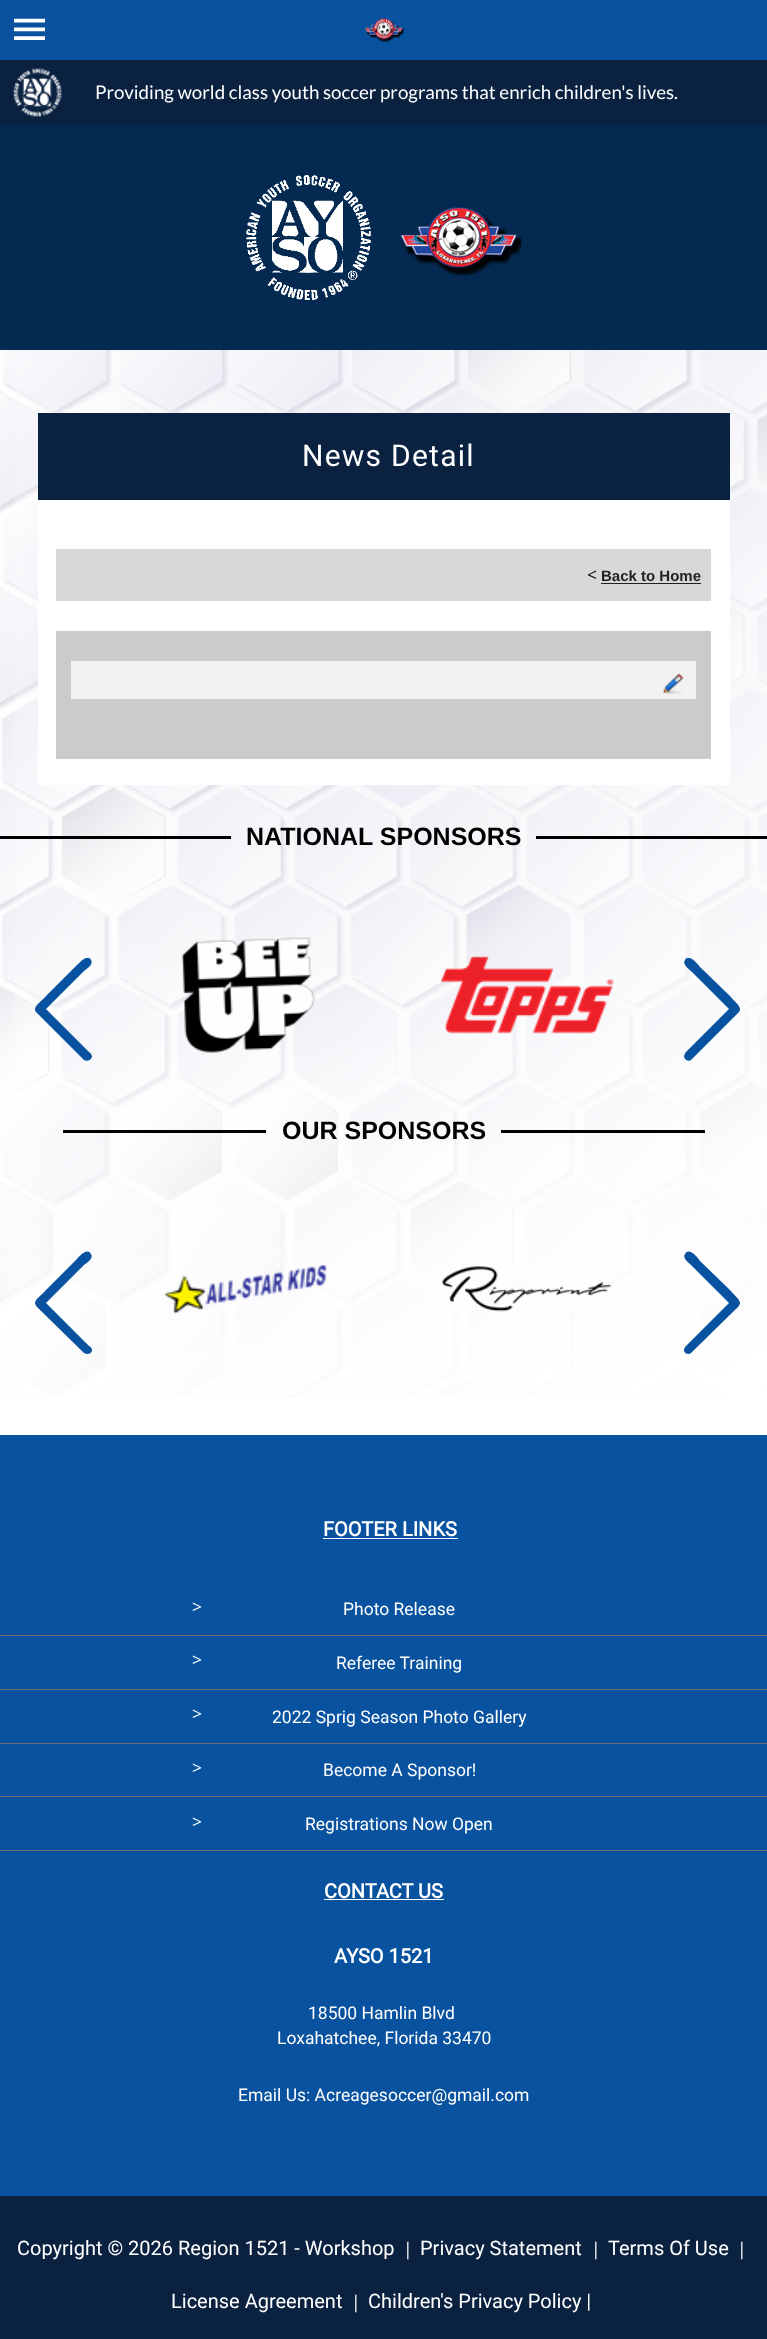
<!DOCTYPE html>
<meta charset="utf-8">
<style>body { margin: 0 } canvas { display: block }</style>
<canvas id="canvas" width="767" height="2339"></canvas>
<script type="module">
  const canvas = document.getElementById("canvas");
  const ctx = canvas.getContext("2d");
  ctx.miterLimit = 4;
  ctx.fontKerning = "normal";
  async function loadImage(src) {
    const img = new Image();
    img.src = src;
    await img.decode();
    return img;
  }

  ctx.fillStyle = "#ffffff";
  ctx.fillRect(0, 0, 767, 2339);
  ctx.fillStyle = "#08529f";
  ctx.fillRect(0, 0, 767, 60);
  ctx.drawImage(await loadImage("img1.png"), 14, 18, 31, 22);
  ctx.drawImage(await loadImage("img2.png"), 365, 18, 39, 25);
  ctx.drawImage(await loadImage("img3.png"), 0, 350, 767, 1048);
  ctx.fillStyle = "#0a2240";
  ctx.fillRect(0, 60, 767, 65);
  ctx.drawImage(await loadImage("img4.png"), 13, 68, 49, 49);
  ctx.font = "18.75px Lato";
  ctx.fillStyle = "#ffffff";
  ctx.fillText("Providing world class youth soccer programs that enrich children's lives.", 95, 99);
  ctx.fillStyle = "#042a51";
  ctx.fillRect(0, 125, 767, 225);
  ctx.drawImage(await loadImage("img5.png"), 246, 175, 126, 125);
  ctx.drawImage(await loadImage("img6.png"), 400, 207, 122, 70);
  ctx.fillStyle = "#ffffff";
  ctx.fillRect(38, 500, 692, 285);
  ctx.fillStyle = "#0a2240";
  ctx.fillRect(38, 413, 692, 87);
  ctx.letterSpacing = "1.25px";
  ctx.font = "30px Roboto";
  ctx.fillStyle = "#ffffff";
  ctx.fillText("News Detail", 302, 466);
  ctx.fillStyle = "#d8d8d8";
  ctx.fillRect(56, 549, 655, 52);
  ctx.letterSpacing = "0px";
  ctx.font = "17.5px Open Sans";
  ctx.fillStyle = "#000000";
  ctx.fillText("<", 587, 581);
  ctx.font = "bold 15px Liberation Sans";
  ctx.fillStyle = "#222222";
  ctx.fillText("Back to Home", 601, 581);
  ctx.fillRect(601, 583, 100, 1);
  ctx.fillStyle = "#cbcbcb";
  ctx.fillRect(56, 631, 655, 128);
  ctx.fillStyle = "#f2f2f2";
  ctx.fillRect(71, 661, 625, 38);
  ctx.drawImage(await loadImage("img7.png"), 663, 673, 21, 21);
  ctx.fillStyle = "#000000";
  ctx.fillRect(0, 836, 231, 3);
  ctx.font = "bold 25px Liberation Sans";
  ctx.fillText("NATIONAL SPONSORS", 246, 845);
  ctx.fillRect(536, 836, 231, 3);
  ctx.save();
  ctx.beginPath();
  ctx.rect(29, 958, 70, 103);
  ctx.clip();
  ctx.fillStyle = "#08529f";
  ctx.beginPath();
  ctx.moveTo(46, 1009);
  ctx.lineTo(84, 971);
  ctx.bezierCurveTo(87, 969, 94, 964, 91, 960);
  ctx.bezierCurveTo(87, 952, 77, 966, 75, 967);
  ctx.lineTo(45, 997);
  ctx.bezierCurveTo(45, 998, 35, 1005, 35, 1009);
  ctx.bezierCurveTo(35, 1011, 36, 1012, 37, 1013);
  ctx.lineTo(84, 1060);
  ctx.bezierCurveTo(87, 1062, 91, 1060, 92, 1057);
  ctx.bezierCurveTo(92, 1055, 91, 1053, 89, 1052);
  ctx.closePath();
  ctx.fill();
  ctx.restore();
  ctx.drawImage(await loadImage("img8.png"), 181, 937, 134, 116);
  ctx.drawImage(await loadImage("img9.png"), 440, 956, 174, 78);
  ctx.save();
  ctx.beginPath();
  ctx.rect(684, 958, 56, 103);
  ctx.clip();
  ctx.fillStyle = "#08529f";
  ctx.beginPath();
  ctx.moveTo(729, 1009);
  ctx.lineTo(691, 971);
  ctx.bezierCurveTo(689, 969, 682, 964, 685, 960);
  ctx.bezierCurveTo(689, 952, 699, 966, 700, 967);
  ctx.lineTo(731, 997);
  ctx.bezierCurveTo(731, 998, 740, 1005, 740, 1009);
  ctx.bezierCurveTo(740, 1011, 739, 1012, 738, 1013);
  ctx.lineTo(691, 1060);
  ctx.bezierCurveTo(689, 1062, 685, 1060, 684, 1057);
  ctx.bezierCurveTo(684, 1055, 685, 1053, 686, 1052);
  ctx.closePath();
  ctx.fill();
  ctx.restore();
  ctx.fillRect(63, 1130, 203, 3);
  ctx.fillText("OUR SPONSORS", 282, 1139);
  ctx.fillRect(501, 1130, 204, 3);
  ctx.fillStyle = "#08529f";
  ctx.beginPath();
  ctx.moveTo(46, 1303);
  ctx.lineTo(84, 1265);
  ctx.bezierCurveTo(87, 1263, 94, 1258, 91, 1254);
  ctx.bezierCurveTo(87, 1246, 77, 1259, 75, 1261);
  ctx.lineTo(45, 1291);
  ctx.bezierCurveTo(45, 1292, 35, 1299, 35, 1303);
  ctx.bezierCurveTo(35, 1304, 36, 1306, 37, 1307);
  ctx.lineTo(84, 1353);
  ctx.bezierCurveTo(87, 1355, 91, 1354, 92, 1351);
  ctx.bezierCurveTo(92, 1348, 91, 1347, 89, 1346);
  ctx.closePath();
  ctx.fill();
  ctx.drawImage(await loadImage("img10.png"), 164, 1265, 164, 49);
  ctx.drawImage(await loadImage("img11.png"), 442, 1266, 170, 46);
  ctx.beginPath();
  ctx.moveTo(729, 1303);
  ctx.lineTo(691, 1265);
  ctx.bezierCurveTo(689, 1263, 682, 1258, 685, 1254);
  ctx.bezierCurveTo(689, 1246, 699, 1259, 700, 1261);
  ctx.lineTo(731, 1291);
  ctx.bezierCurveTo(731, 1292, 740, 1299, 740, 1303);
  ctx.bezierCurveTo(740, 1304, 739, 1306, 738, 1307);
  ctx.lineTo(691, 1353);
  ctx.bezierCurveTo(689, 1355, 685, 1354, 684, 1351);
  ctx.bezierCurveTo(684, 1348, 685, 1347, 686, 1346);
  ctx.closePath();
  ctx.fill();
  ctx.fillRect(0, 1435, 767, 761);
  ctx.font = "bold 20px Roboto";
  ctx.fillStyle = "#ffffff";
  ctx.fillText("FOOTER LINKS", 323, 1536);
  ctx.fillRect(323, 1538, 135, 1);
  ctx.fillStyle = "#707070";
  ctx.fillRect(0, 1635, 767, 1);
  ctx.font = "17.5px Open Sans";
  ctx.fillStyle = "#ffffff";
  ctx.fillText(">", 192, 1613);
  ctx.font = "17.5px Roboto";
  ctx.fillText("Photo Release", 343, 1615);
  ctx.fillStyle = "#707070";
  ctx.fillRect(0, 1689, 767, 1);
  ctx.font = "17.5px Open Sans";
  ctx.fillStyle = "#ffffff";
  ctx.fillText(">", 192, 1666);
  ctx.font = "17.5px Roboto";
  ctx.fillText("Referee Training", 336, 1669);
  ctx.fillStyle = "#707070";
  ctx.fillRect(0, 1743, 767, 1);
  ctx.font = "17.5px Open Sans";
  ctx.fillStyle = "#ffffff";
  ctx.fillText(">", 192, 1720);
  ctx.font = "17.5px Roboto";
  ctx.fillText("2022 Sprig Season Photo Gallery", 272, 1723);
  ctx.fillStyle = "#707070";
  ctx.fillRect(0, 1796, 767, 1);
  ctx.font = "17.5px Open Sans";
  ctx.fillStyle = "#ffffff";
  ctx.fillText(">", 192, 1774);
  ctx.font = "17.5px Roboto";
  ctx.fillText("Become A Sponsor!", 323, 1776);
  ctx.fillStyle = "#707070";
  ctx.fillRect(0, 1850, 767, 1);
  ctx.font = "17.5px Open Sans";
  ctx.fillStyle = "#ffffff";
  ctx.fillText(">", 192, 1828);
  ctx.font = "17.5px Roboto";
  ctx.fillText("Registrations Now Open", 305, 1830);
  ctx.font = "bold 20px Roboto";
  ctx.fillText("CONTACT US", 324, 1898);
  ctx.fillRect(324, 1899, 120, 1);
  ctx.fillText("AYSO 1521", 334, 1963);
  ctx.font = "17.5px Roboto";
  ctx.fillText("18500 Hamlin Blvd", 308, 2019);
  ctx.fillText("Loxahatchee, Florida 33470", 277, 2044);
  ctx.fillText("Email Us: Acreagesoccer@gmail.com", 238, 2101);
  ctx.fillStyle = "#0a2240";
  ctx.fillRect(0, 2196, 767, 143);
  ctx.font = "20px Roboto";
  ctx.fillStyle = "#ffffff";
  ctx.fillText("Copyright © 2026 Region 1521 - Workshop", 17, 2255);
  ctx.font = "17.5px Open Sans";
  ctx.fillText("|", 403, 2255);
  ctx.font = "20px Roboto";
  ctx.fillText("Privacy Statement", 420, 2255);
  ctx.font = "17.5px Open Sans";
  ctx.fillText("|", 591, 2255);
  ctx.font = "20px Roboto";
  ctx.fillText("Terms Of Use", 608, 2255);
  ctx.font = "17.5px Open Sans";
  ctx.fillText("|", 737, 2255);
  ctx.font = "20px Roboto";
  ctx.fillText("License Agreement", 171, 2308);
  ctx.font = "17.5px Open Sans";
  ctx.fillText("|", 351, 2308);
  ctx.font = "20px Roboto";
  ctx.fillText("Children's Privacy Policy |", 368, 2308);
</script>
